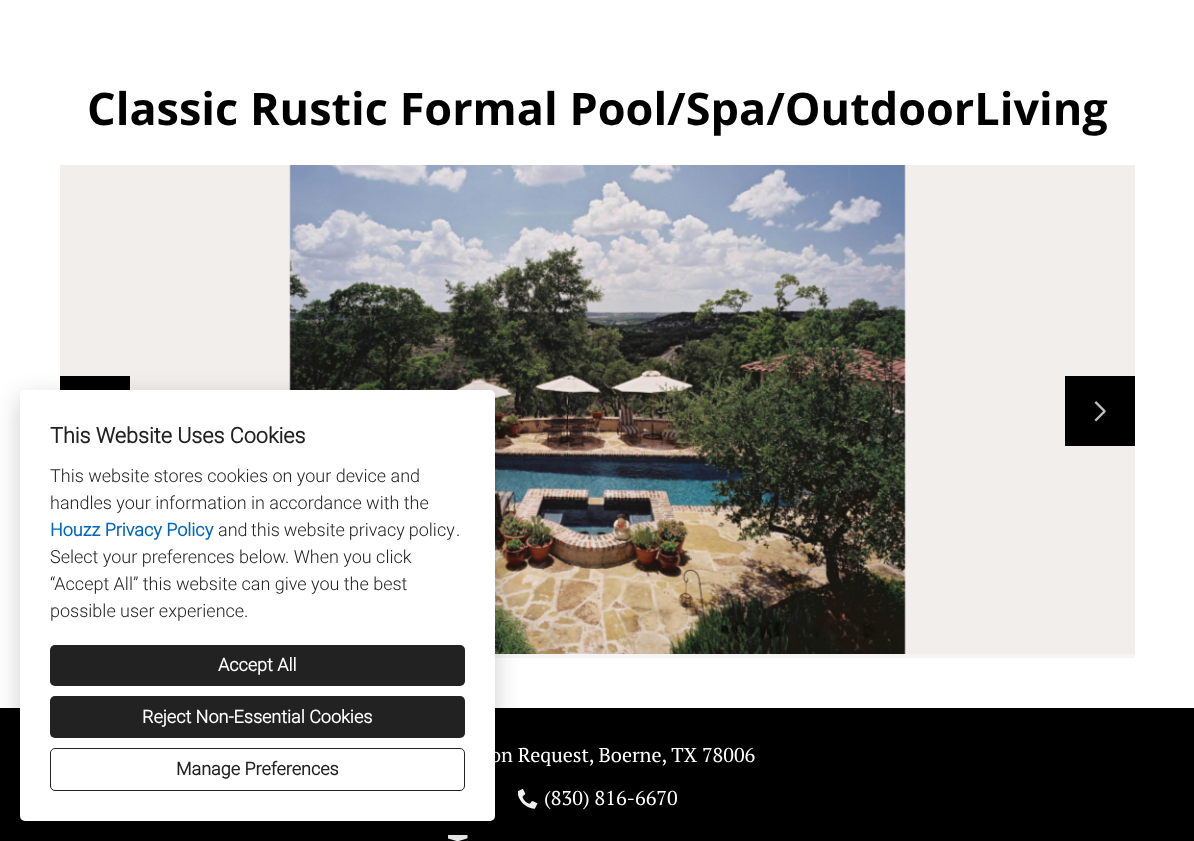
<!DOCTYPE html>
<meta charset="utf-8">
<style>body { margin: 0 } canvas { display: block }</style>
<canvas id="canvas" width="1194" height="841"></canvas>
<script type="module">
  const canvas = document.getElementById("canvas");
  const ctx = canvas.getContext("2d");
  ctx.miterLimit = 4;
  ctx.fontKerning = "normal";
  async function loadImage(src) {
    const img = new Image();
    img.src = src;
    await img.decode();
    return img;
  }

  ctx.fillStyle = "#ffffff";
  ctx.fillRect(0, 0, 1194, 841);
  ctx.font = "bold 45px Open Sans";
  ctx.fillStyle = "#000000";
  ctx.fillText("Classic Rustic Formal Pool/Spa/OutdoorLiving", 87, 125);
  ctx.fillStyle = "#f1eeeb";
  ctx.fillRect(60, 165, 1075, 489);
  ctx.fillStyle = "#000000";
  ctx.fillRect(60, 376, 70, 14);
  ctx.drawImage(await loadImage("img1.png"), 289, 165, 617, 489);
  ctx.fillRect(1065, 376, 70, 70);
  ctx.drawImage(await loadImage("img2.png"), 1094, 401, 12, 21);
  ctx.fillStyle = "#f5f5f5";
  ctx.fillRect(495, 654, 640, 4);
  ctx.fillStyle = "#000000";
  ctx.fillRect(0, 708, 1194, 133);
  ctx.font = "20px PT Serif";
  ctx.fillStyle = "#ffffff";
  ctx.fillText("on Request, Boerne, TX 78006", 490, 762);
  ctx.drawImage(await loadImage("img3.png"), 518, 789, 20, 20);
  ctx.fillText("(830) 816-6670", 544, 805);
  ctx.drawImage(await loadImage("img4.png"), 448, 835, 20, 6);
  ctx.fillStyle = "rgba(0, 0, 0, 0.2)";
  ctx.filter = "blur(12.5px)";
  ctx.beginPath();
  ctx.roundRect(20, 398, 475, 431, 5);
  ctx.fill();
  ctx.filter = "none";
  ctx.fillStyle = "#ffffff";
  ctx.beginPath();
  ctx.roundRect(20, 390, 475, 431, 5);
  ctx.fill();
  ctx.font = "bold 21.6px Roboto";
  ctx.fillStyle = "#222222";
  ctx.fillText("This Website Uses Cookies", 50, 443);
  ctx.font = "300 18px Roboto";
  ctx.fillText("This website stores cookies on your device and", 50, 482);
  ctx.fillText("handles your information in accordance with the", 50, 509);
  ctx.font = "bold 18px Roboto";
  ctx.fillStyle = "#0066c3";
  ctx.fillText("Houzz Privacy Policy", 50, 536);
  ctx.font = "300 18px Roboto";
  ctx.fillStyle = "#222222";
  ctx.fillText("and", 218, 536);
  ctx.wordSpacing = "-0.5px";
  ctx.fillText("this website privacy policy", 251, 536);
  ctx.wordSpacing = "0px";
  ctx.fillText(".", 456, 536);
  ctx.fillText("Select your preferences below. When you click", 50, 563);
  ctx.fillText("“Accept All” this website can give you the best", 50, 590);
  ctx.fillText("possible user experience.", 50, 617);
  ctx.beginPath();
  ctx.roundRect(50, 645, 415, 41, 5);
  ctx.fill();
  ctx.font = "bold 18px Roboto";
  ctx.fillStyle = "#ffffff";
  ctx.fillText("Accept All", 218, 671);
  ctx.fillStyle = "#222222";
  ctx.beginPath();
  ctx.roundRect(50, 696, 415, 42, 5);
  ctx.fill();
  ctx.fillStyle = "#ffffff";
  ctx.fillText("Reject Non-Essential Cookies", 142, 723);
  ctx.beginPath();
  ctx.roundRect(50.5, 748.5, 414, 42, 4.5);
  ctx.strokeStyle = "#222222";
  ctx.stroke();
  ctx.fillStyle = "#222222";
  ctx.fillText("Manage Preferences", 176, 775);
</script>
